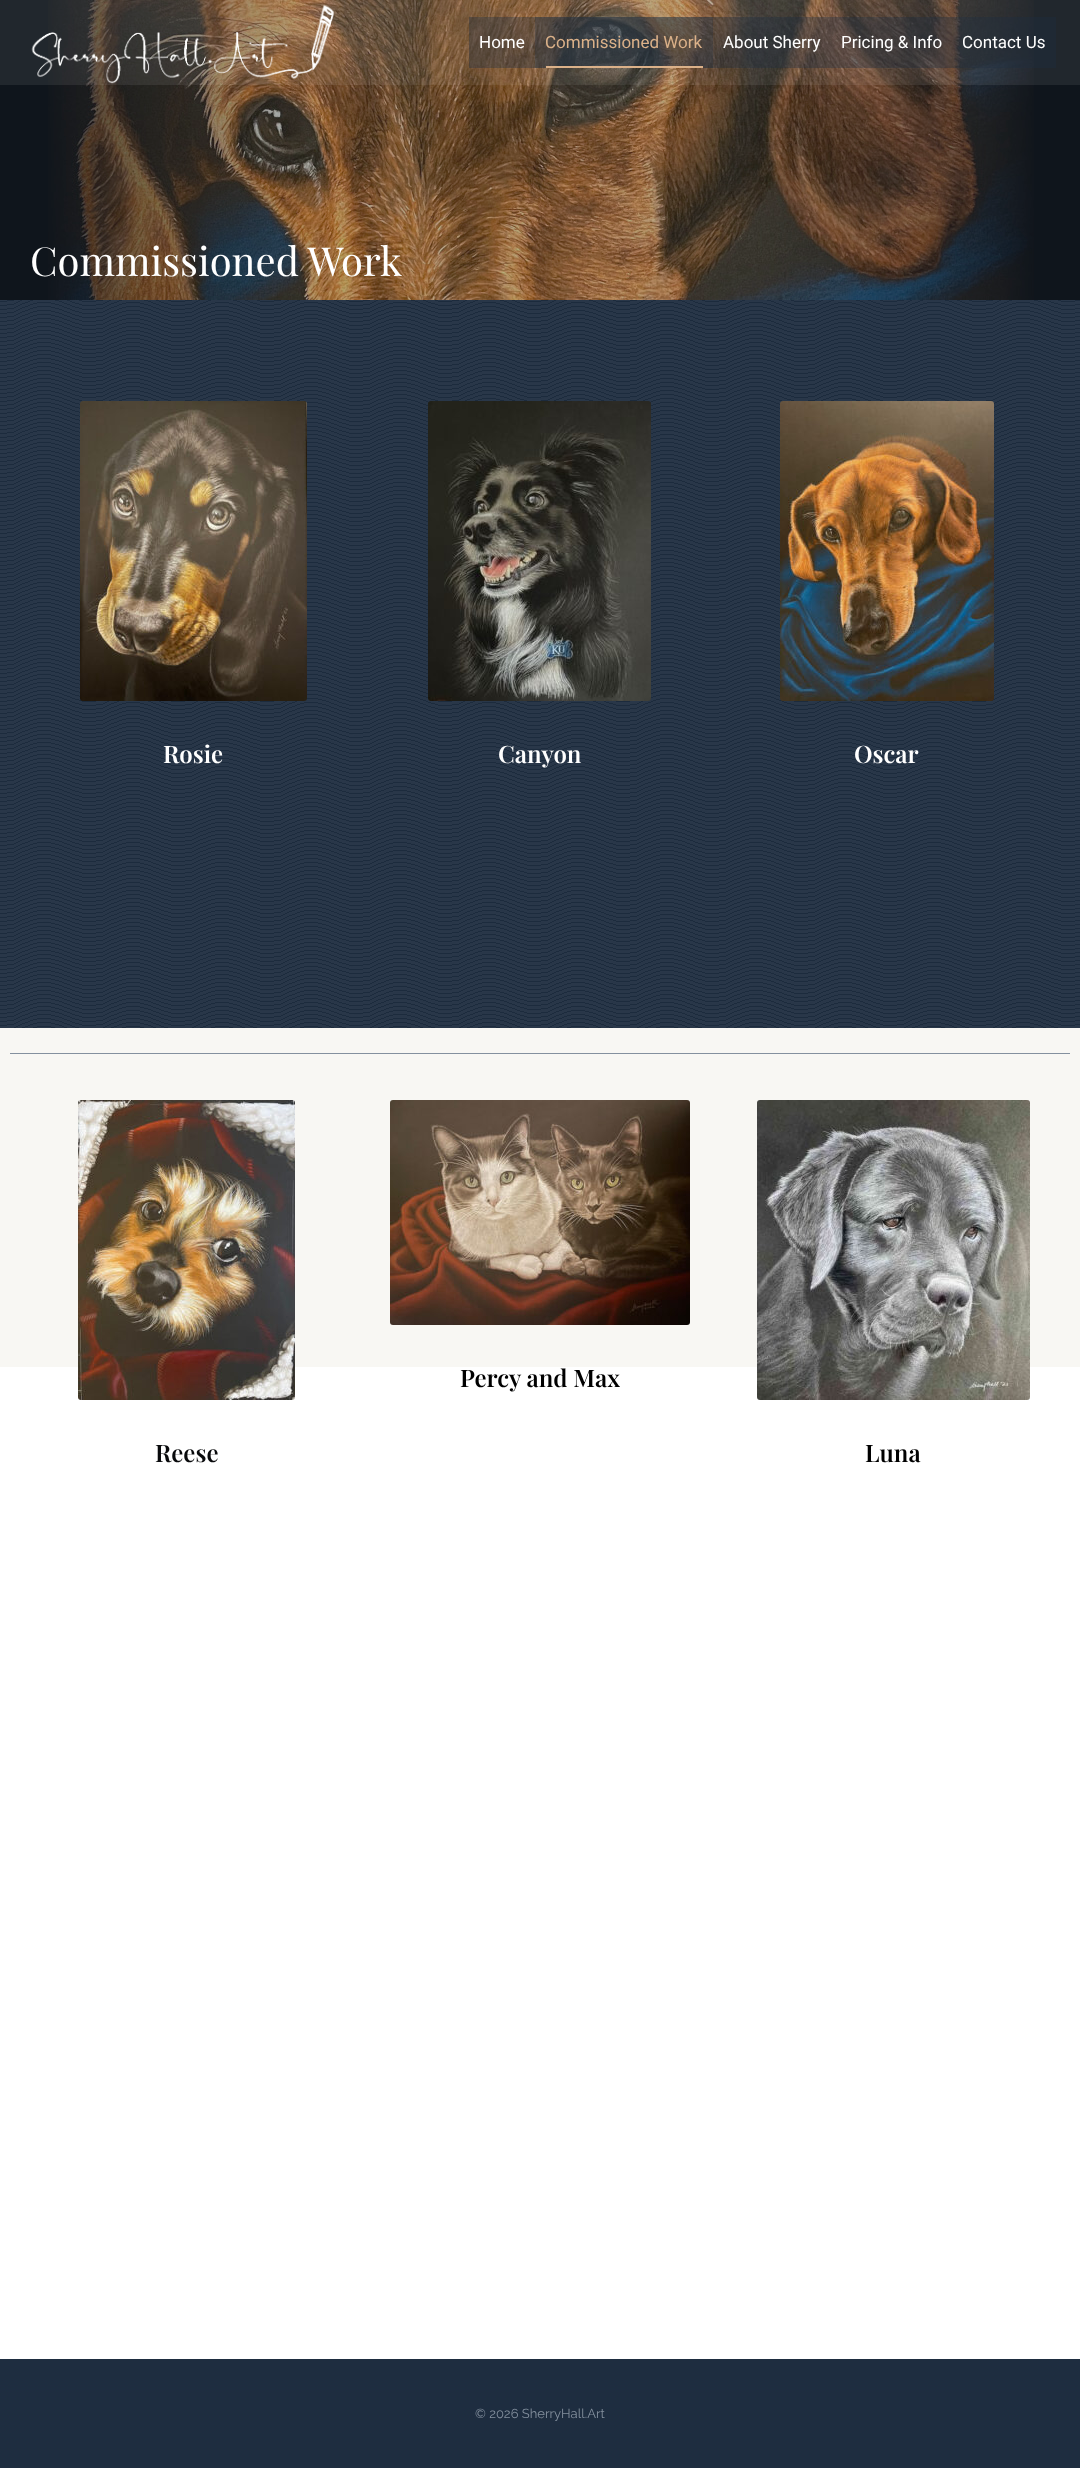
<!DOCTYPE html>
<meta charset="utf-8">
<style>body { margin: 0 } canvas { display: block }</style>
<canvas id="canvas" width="1080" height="2468"></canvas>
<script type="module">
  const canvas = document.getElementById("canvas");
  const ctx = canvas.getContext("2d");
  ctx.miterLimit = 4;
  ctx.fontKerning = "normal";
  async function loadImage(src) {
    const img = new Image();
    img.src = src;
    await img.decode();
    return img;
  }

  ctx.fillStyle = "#ffffff";
  ctx.fillRect(0, 0, 1080, 2468);
  ctx.fillStyle = "#0f151c";
  ctx.fillRect(0, 0, 1080, 300);
  ctx.drawImage(await loadImage("img2.png"), 48, 0, 986, 300);
  ctx.fillStyle = "rgba(255, 255, 255, 0.08)";
  ctx.fillRect(0, 0, 1080, 85);
  ctx.drawImage(await loadImage("img1.png"), 31, 5, 303, 79);
  ctx.fillStyle = "rgba(30, 45, 64, 0.37)";
  ctx.fillRect(469, 17, 66, 51);
  ctx.font = "17px Roboto";
  ctx.fillStyle = "#ffffff";
  ctx.fillText("Home", 479, 48);
  ctx.fillStyle = "rgba(30, 45, 64, 0.55)";
  ctx.fillRect(535, 17, 178, 51);
  ctx.fillStyle = "#dbb189";
  ctx.fillText("Commissioned Work", 545, 48);
  ctx.fillRect(546, 66, 157, 2);
  ctx.fillStyle = "rgba(30, 45, 64, 0.37)";
  ctx.fillRect(713, 17, 118, 51);
  ctx.fillStyle = "#ffffff";
  ctx.fillText("About Sherry", 723, 48);
  ctx.fillStyle = "rgba(30, 45, 64, 0.37)";
  ctx.fillRect(831, 17, 121, 51);
  ctx.fillStyle = "#ffffff";
  ctx.fillText("Pricing & Info", 841, 48);
  ctx.fillStyle = "rgba(30, 45, 64, 0.37)";
  ctx.fillRect(952, 17, 104, 51);
  ctx.fillStyle = "#ffffff";
  ctx.fillText("Contact Us", 962, 48);
  ctx.font = "40px Playfair Display";
  ctx.fillText("Commissioned Work", 30, 276);
  ctx.fillStyle = "#1e2d40";
  ctx.fillRect(0, 300, 1080, 728);
  ctx.drawImage(await loadImage("img3.png"), 0, 300, 1080, 728);
  ctx.drawImage(await loadImage("img4.png"), 80, 401, 227, 300);
  ctx.font = "600 24px Playfair Display";
  ctx.fillStyle = "#ffffff";
  ctx.fillText("Rosie", 163, 763);
  ctx.drawImage(await loadImage("img5.png"), 428, 401, 223, 300);
  ctx.fillText("Canyon", 498, 763);
  ctx.drawImage(await loadImage("img6.png"), 780, 401, 214, 300);
  ctx.fillText("Oscar", 854, 763);
  ctx.fillStyle = "#f8f7f3";
  ctx.fillRect(0, 1028, 1080, 339);
  ctx.fillStyle = "#84909e";
  ctx.fillRect(10, 1053, 1060, 1);
  ctx.drawImage(await loadImage("img7.png"), 390, 1100, 300, 225);
  ctx.fillStyle = "#000000";
  ctx.fillText("Percy and Max", 460, 1387);
  ctx.drawImage(await loadImage("img8.png"), 78, 1100, 217, 300);
  ctx.fillStyle = "#090a0c";
  ctx.fillText("Reese", 155, 1462);
  ctx.drawImage(await loadImage("img9.png"), 757, 1100, 273, 300);
  ctx.fillStyle = "#000000";
  ctx.fillText("Luna", 865, 1462);
  ctx.fillStyle = "#1e2d40";
  ctx.fillRect(0, 2359, 1080, 109);
  ctx.font = "13px Raleway";
  ctx.fillStyle = "#84909e";
  ctx.fillText("© 2026 SherryHall.Art", 475, 2418);
</script>
